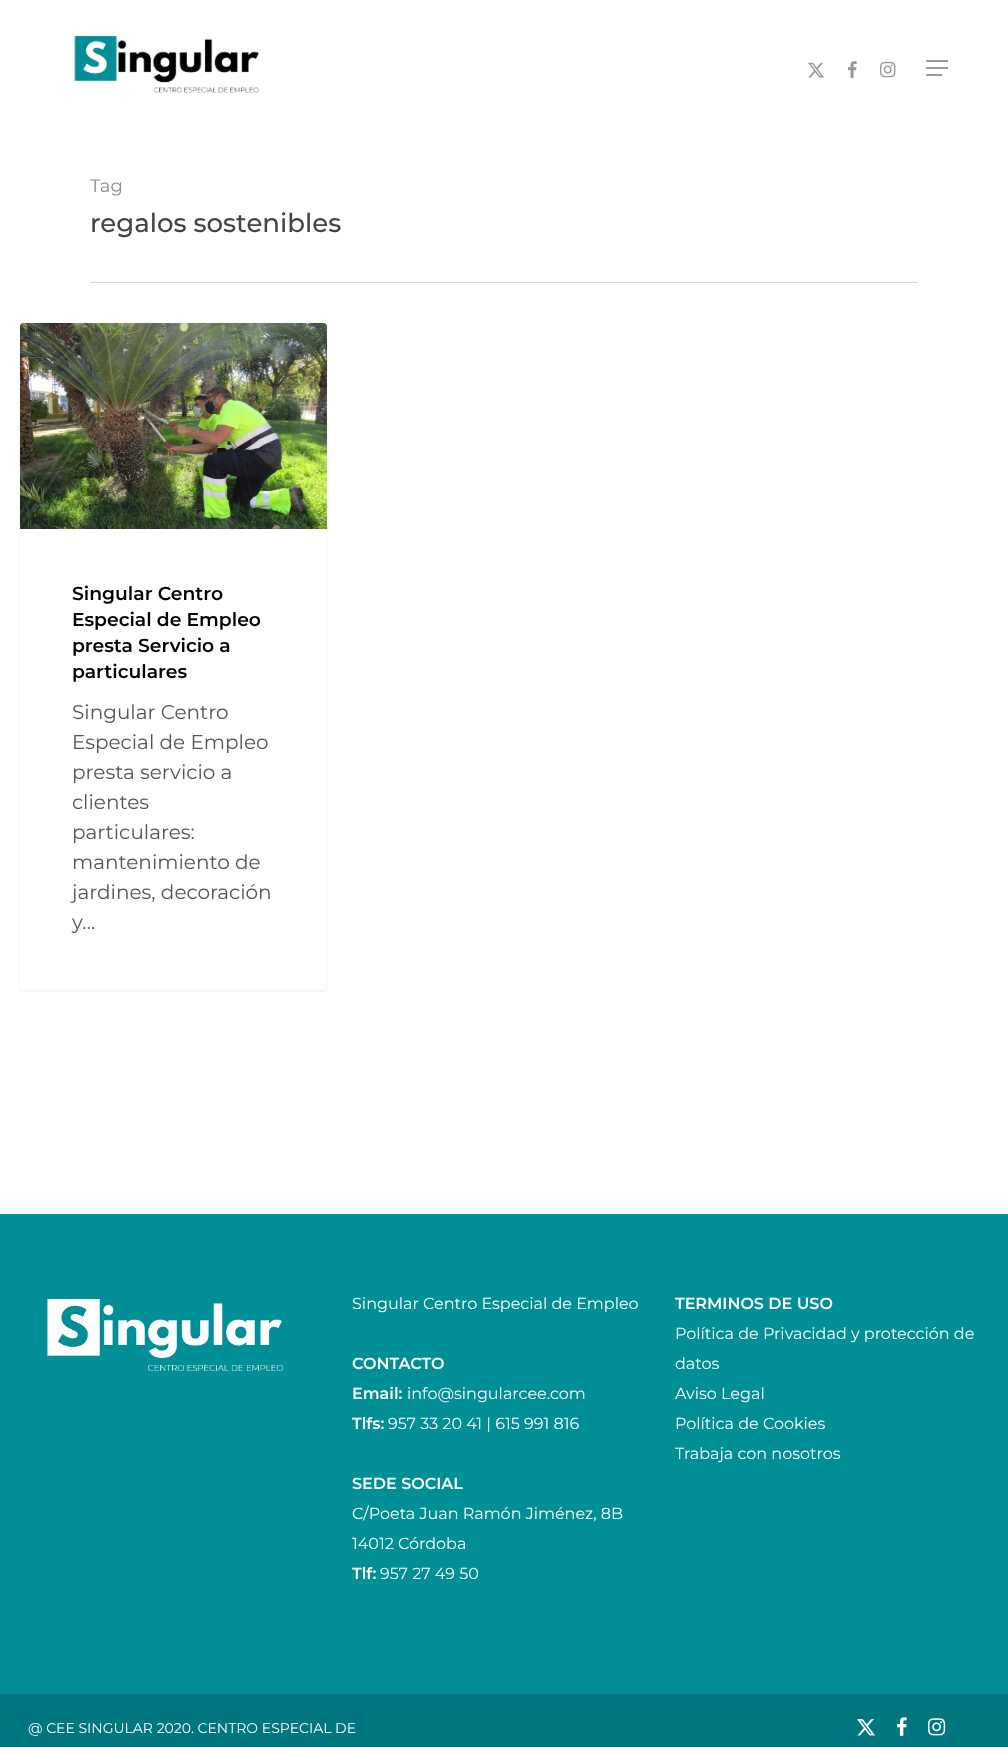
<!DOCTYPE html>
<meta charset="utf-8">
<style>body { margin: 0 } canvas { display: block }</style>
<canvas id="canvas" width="1008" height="1747"></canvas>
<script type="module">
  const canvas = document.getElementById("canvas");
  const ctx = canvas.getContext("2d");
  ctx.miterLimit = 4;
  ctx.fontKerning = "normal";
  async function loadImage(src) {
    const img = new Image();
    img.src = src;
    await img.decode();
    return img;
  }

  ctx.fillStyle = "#ffffff";
  ctx.fillRect(0, 0, 1008, 1747);
  ctx.drawImage(await loadImage("img1.png"), 74, 35, 185, 58);
  ctx.drawImage(await loadImage("img2.png"), 808, 62, 16, 16);
  ctx.drawImage(await loadImage("img3.png"), 847, 61, 10, 17);
  ctx.drawImage(await loadImage("img4.png"), 880, 61, 16, 17);
  ctx.fillStyle = "#999999";
  ctx.fillRect(926, 60, 22, 2);
  ctx.fillRect(926, 74, 16, 2);
  ctx.fillRect(926, 67, 22, 2);
  ctx.fillStyle = "#d9d9d9";
  ctx.fillRect(90, 282, 828, 1);
  ctx.font = "18px Montserrat";
  ctx.fillStyle = "#8c8c8c";
  ctx.fillText("Tag", 90, 192);
  ctx.font = "500 26px Montserrat";
  ctx.fillStyle = "#444444";
  ctx.fillText("regalos sostenibles", 90, 232);
  ctx.fillStyle = "rgba(0, 0, 0, 0.08)";
  ctx.filter = "blur(1.5px)";
  ctx.beginPath();
  ctx.roundRect(20, 324, 307, 667, 4);
  ctx.fill();
  ctx.filter = "none";
  ctx.fillStyle = "#ffffff";
  ctx.beginPath();
  ctx.roundRect(20, 323, 307, 667, 4);
  ctx.fill();
  ctx.drawImage(await loadImage("img5.png"), 20, 323, 307, 206);
  ctx.font = "600 18.75px Montserrat";
  ctx.fillStyle = "#000000";
  ctx.fillText("Singular Centro", 72, 600);
  ctx.fillText("Especial de Empleo", 72, 626);
  ctx.fillText("presta Servicio a", 72, 652);
  ctx.fillText("particulares", 72, 678);
  ctx.font = "20px Montserrat";
  ctx.fillStyle = "#555555";
  ctx.fillText("Singular Centro", 72, 719);
  ctx.fillText("Especial de Empleo", 72, 749);
  ctx.fillText("presta servicio a", 72, 779);
  ctx.fillText("clientes", 72, 809);
  ctx.fillText("particulares:", 72, 839);
  ctx.fillText("mantenimiento de", 72, 869);
  ctx.fillText("jardines, decoración", 72, 899);
  ctx.fillText("y…", 72, 929);
  ctx.fillStyle = "#008e97";
  ctx.fillRect(0, 1214, 1008, 480);
  ctx.drawImage(await loadImage("img6.png"), 47, 1299, 236, 72);
  ctx.font = "16px Montserrat";
  ctx.fillStyle = "#ffffff";
  ctx.fillText("Singular Centro Especial de Empleo", 352, 1309);
  ctx.font = "600 16px Montserrat";
  ctx.fillText("CONTACTO", 352, 1369);
  ctx.fillText("Email:", 352, 1399);
  ctx.font = "16px Montserrat";
  ctx.fillText("info@singularcee.com", 407, 1399);
  ctx.font = "600 16px Montserrat";
  ctx.fillText("Tlfs:", 352, 1429);
  ctx.font = "16px Montserrat";
  ctx.fillText("957 33 20 41 | 615 991 816", 388, 1429);
  ctx.font = "600 16px Montserrat";
  ctx.fillText("SEDE SOCIAL", 352, 1489);
  ctx.font = "16px Montserrat";
  ctx.fillText("C/Poeta Juan Ramón Jiménez, 8B", 352, 1519);
  ctx.fillText("14012 Córdoba", 352, 1549);
  ctx.font = "600 16px Montserrat";
  ctx.fillText("Tlf:", 352, 1579);
  ctx.font = "16px Montserrat";
  ctx.fillText("957 27 49 50", 380, 1579);
  ctx.font = "600 16px Montserrat";
  ctx.fillText("TERMINOS DE USO", 675, 1309);
  ctx.font = "16px Montserrat";
  ctx.fillText("Política de Privacidad y protección de", 675, 1339);
  ctx.fillText("datos", 675, 1369);
  ctx.fillText("Aviso Legal", 675, 1399);
  ctx.fillText("Política de Cookies", 675, 1429);
  ctx.fillText("Trabaja con nosotros", 675, 1459);
  ctx.fillStyle = "#00777f";
  ctx.fillRect(0, 1694, 1008, 53);
  ctx.font = "14px Montserrat";
  ctx.fillStyle = "#ffffff";
  ctx.fillText("@ CEE SINGULAR 2020. CENTRO ESPECIAL DE", 28, 1733);
  ctx.drawImage(await loadImage("img7.png"), 857, 1719, 18, 17);
  ctx.drawImage(await loadImage("img8.png"), 897, 1717, 10, 19);
  ctx.drawImage(await loadImage("img9.png"), 928, 1718, 18, 18);
</script>
